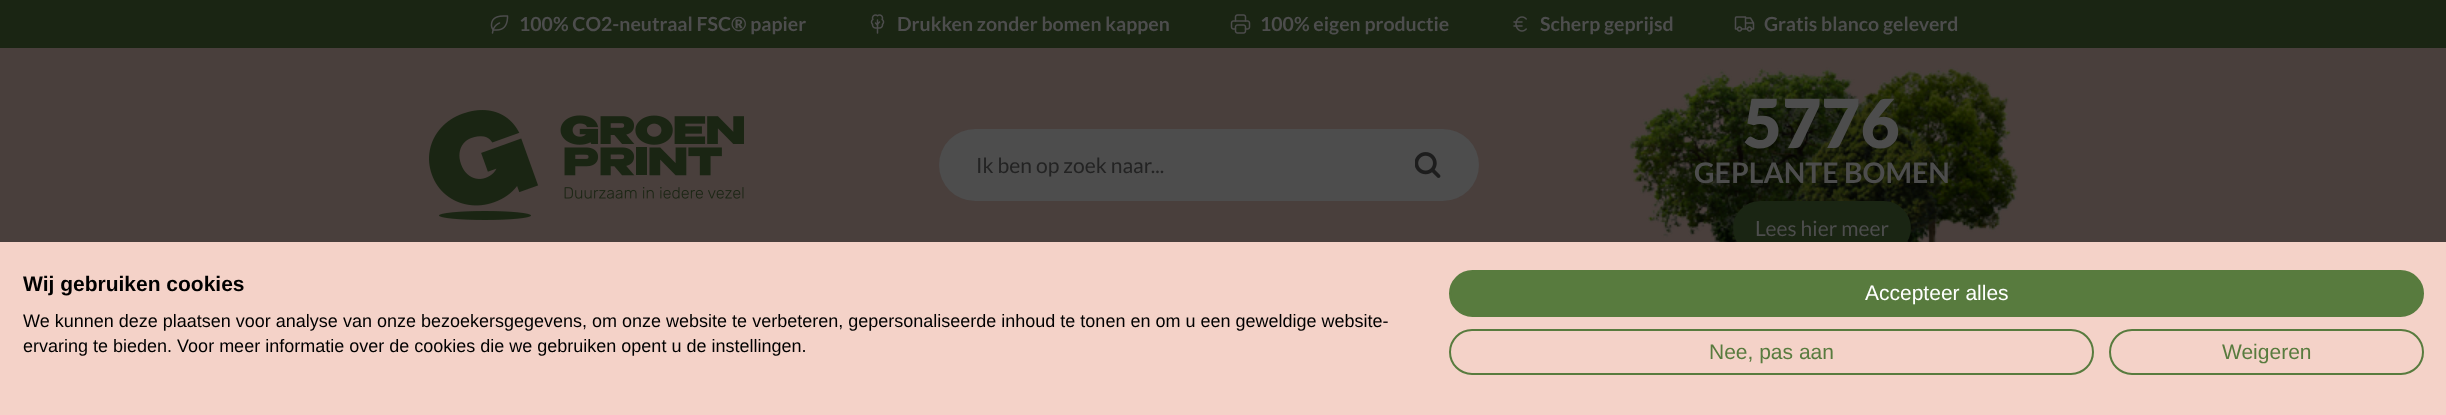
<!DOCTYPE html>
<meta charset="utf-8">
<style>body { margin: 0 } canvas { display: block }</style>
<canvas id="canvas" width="2446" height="415"></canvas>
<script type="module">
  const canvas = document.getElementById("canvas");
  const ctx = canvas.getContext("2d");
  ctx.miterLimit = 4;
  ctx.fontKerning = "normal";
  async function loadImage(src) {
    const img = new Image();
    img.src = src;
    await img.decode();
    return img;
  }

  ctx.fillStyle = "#1a2513";
  ctx.fillRect(0, 0, 2446, 415);
  ctx.drawImage(await loadImage("img1.png"), 490, 15, 19, 19);
  ctx.font = "bold 19.5px Lato";
  ctx.fillStyle = "#4d4d4d";
  ctx.fillText("100% CO2-neutraal FSC® papier", 519, 31);
  ctx.drawImage(await loadImage("img2.png"), 870, 14, 15, 20);
  ctx.fillText("Drukken zonder bomen kappen", 897, 31);
  ctx.drawImage(await loadImage("img3.png"), 1230, 14, 21, 20);
  ctx.fillText("100% eigen productie", 1260, 31);
  ctx.drawImage(await loadImage("img4.png"), 1513, 16, 14, 16);
  ctx.fillText("Scherp geprijsd", 1540, 31);
  ctx.drawImage(await loadImage("img5.png"), 1734, 16, 21, 16);
  ctx.fillText("Gratis blanco geleverd", 1764, 31);
  ctx.fillStyle = "#493f3c";
  ctx.fillRect(0, 48, 1569, 194);
  ctx.fillRect(1569, 48, 877, 194);
  ctx.drawImage(await loadImage("img6.png"), 429, 110, 315, 110);
  ctx.fillStyle = "#4d4d4d";
  ctx.beginPath();
  ctx.roundRect(939, 129, 540, 72, 36);
  ctx.fill();
  ctx.font = "21px Lato";
  ctx.fillStyle = "#232323";
  ctx.fillText("Ik ben op zoek naar...", 976, 173);
  ctx.drawImage(await loadImage("img7.png"), 1415, 152, 26, 26);
  ctx.drawImage(await loadImage("img8.png"), 1629, 67, 390, 175);
  ctx.font = "900 67.5px Lato";
  ctx.fillStyle = "#4d4d4d";
  ctx.fillText("5776", 1743, 148);
  ctx.font = "bold 28.5px Lato";
  ctx.fillText("GEPLANTE BOMEN", 1694, 183);
  ctx.fillStyle = "#1a2513";
  ctx.beginPath();
  ctx.roundRect(1733, 201, 178, 54, 27);
  ctx.fill();
  ctx.font = "21px Lato";
  ctx.fillStyle = "#4d4d4d";
  ctx.fillText("Lees hier meer", 1755, 236);
  ctx.fillStyle = "#f4d2c8";
  ctx.fillRect(0, 242, 2446, 173);
  ctx.font = "bold 21px Liberation Sans";
  ctx.fillStyle = "#000000";
  ctx.fillText("Wij gebruiken cookies", 23, 291);
  ctx.font = "18px Liberation Sans";
  ctx.fillText("We kunnen deze plaatsen voor analyse van onze bezoekersgegevens, om onze website te verbeteren, gepersonaliseerde inhoud te tonen en om u een geweldige website-", 23, 327);
  ctx.fillText("ervaring te bieden. Voor meer informatie over de cookies die we gebruiken opent u de instellingen.", 23, 352);
  ctx.fillStyle = "#587b3e";
  ctx.beginPath();
  ctx.roundRect(1450, 271, 973, 45, 22.5);
  ctx.fill();
  ctx.strokeStyle = "#587b3e";
  ctx.lineWidth = 2;
  ctx.stroke();
  ctx.font = "21px Liberation Sans";
  ctx.fillStyle = "#ffffff";
  ctx.fillText("Accepteer alles", 1865, 300);
  ctx.beginPath();
  ctx.roundRect(1450, 330, 643, 44, 22);
  ctx.stroke();
  ctx.fillStyle = "#587b3e";
  ctx.fillText("Nee, pas aan", 1709, 359);
  ctx.beginPath();
  ctx.roundRect(2110, 330, 313, 44, 22);
  ctx.stroke();
  ctx.fillText("Weigeren", 2222, 359);
</script>
